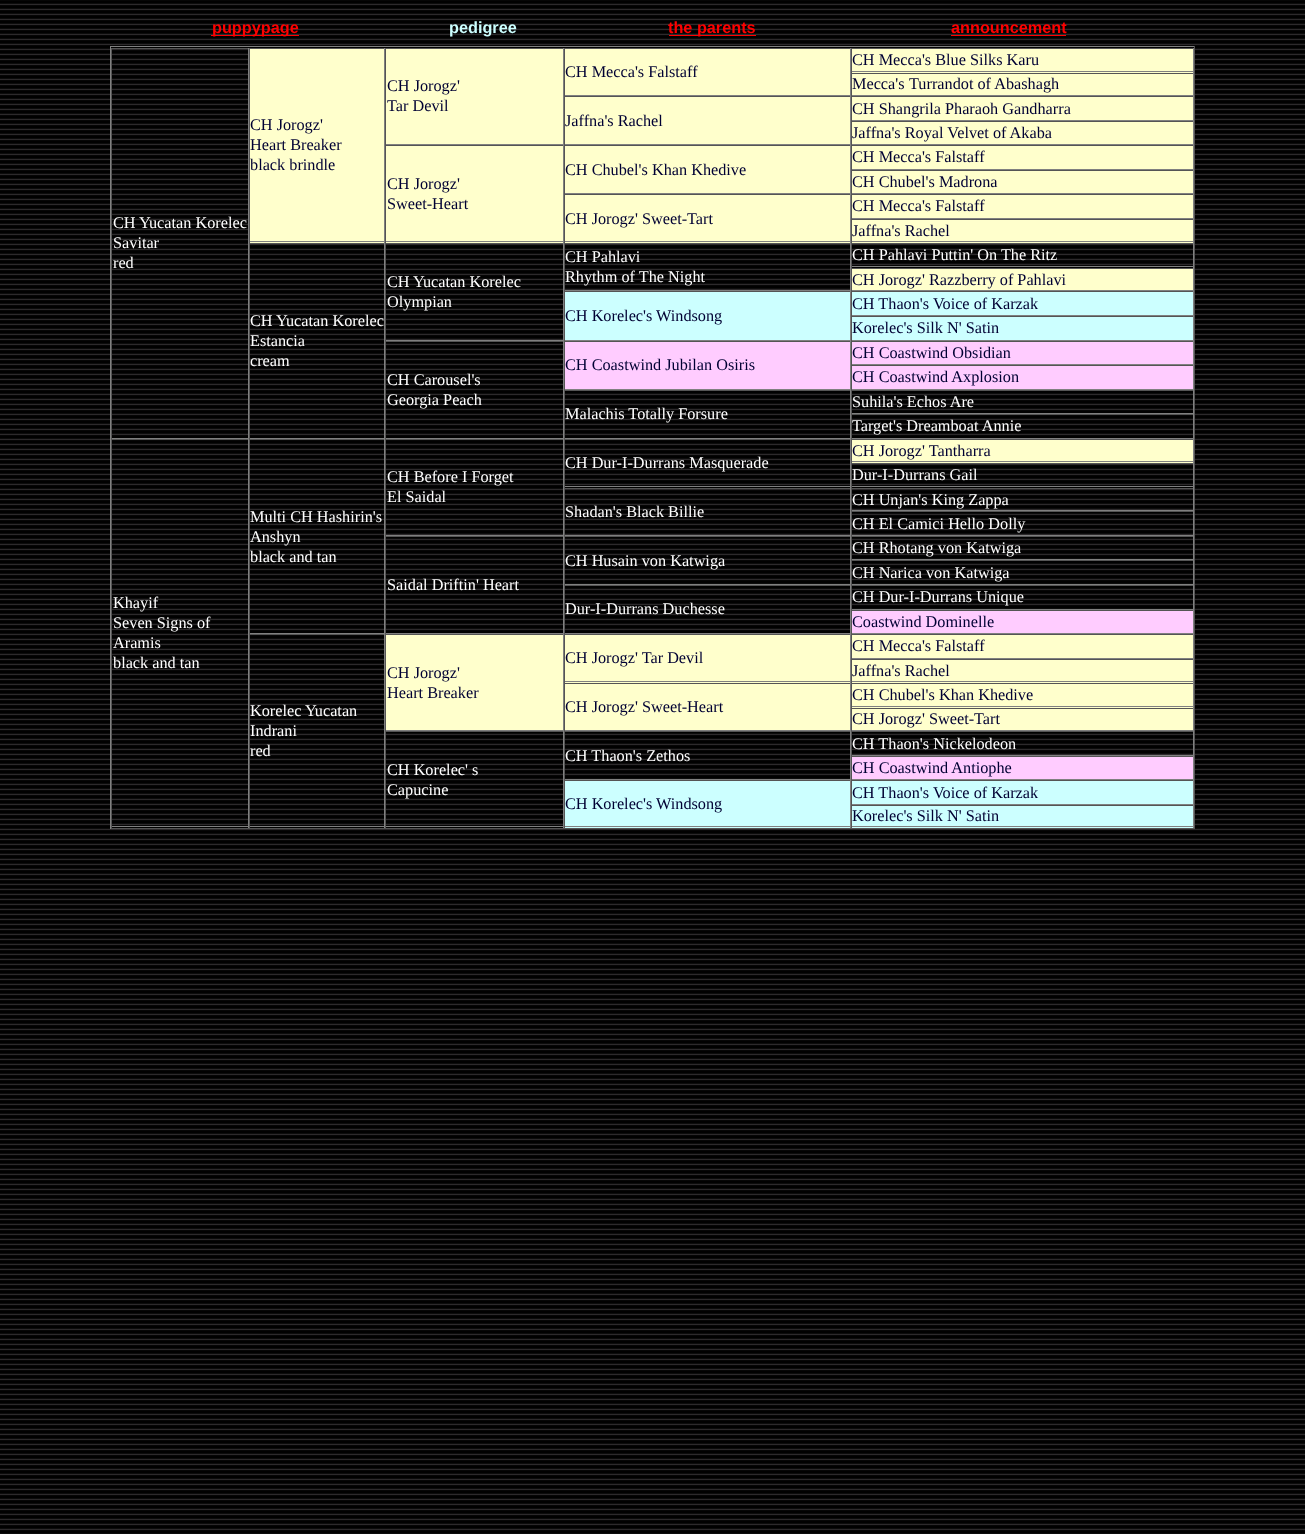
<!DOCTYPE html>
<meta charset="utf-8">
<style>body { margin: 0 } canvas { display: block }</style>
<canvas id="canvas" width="1305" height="1534"></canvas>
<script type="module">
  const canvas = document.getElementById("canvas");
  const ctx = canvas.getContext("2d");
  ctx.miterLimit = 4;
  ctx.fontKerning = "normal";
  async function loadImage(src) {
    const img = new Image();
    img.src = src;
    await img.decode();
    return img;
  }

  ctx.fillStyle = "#ffffff";
  ctx.fillRect(0, 0, 1305, 1534);
  ctx.drawImage(await loadImage("img1.png"), 0, 0, 1305, 1534);
  ctx.fillStyle = "#ff0000";
  ctx.fillRect(211, 35, 88, 1);
  ctx.font = "bold 16.25px Liberation Sans";
  ctx.fillText("puppypage", 212, 33);
  ctx.fillStyle = "#ccffff";
  ctx.fillText("pedigree", 449, 33);
  ctx.fillStyle = "#ff0000";
  ctx.fillRect(669, 35, 87, 1);
  ctx.fillText("the parents", 668, 33);
  ctx.fillText("announcement", 951, 33);
  ctx.fillRect(951, 35, 115, 1);
  ctx.fillStyle = "#808080";
  ctx.fillRect(110, 46, 1085, 1);
  ctx.fillStyle = "#555555";
  ctx.fillRect(1194, 46, 1, 783);
  ctx.fillRect(110, 828, 1085, 1);
  ctx.fillStyle = "#808080";
  ctx.fillRect(110, 46, 1, 783);
  ctx.fillStyle = "#ffffcc";
  ctx.fillRect(852, 49, 341, 24);
  ctx.fillStyle = "#555555";
  ctx.fillRect(111, 48, 1083, 1);
  ctx.fillStyle = "#808080";
  ctx.fillRect(1193, 48, 1, 25);
  ctx.fillRect(851, 71, 343, 1);
  ctx.fillStyle = "#555555";
  ctx.fillRect(851, 48, 1, 25);
  ctx.font = "16.25px Liberation Serif";
  ctx.fillStyle = "#000033";
  ctx.fillText("CH Mecca's Blue Silks Karu", 852, 65);
  ctx.fillStyle = "#ffffcc";
  ctx.fillRect(565, 49, 285, 46);
  ctx.fillStyle = "#808080";
  ctx.fillRect(850, 48, 1, 48);
  ctx.fillRect(564, 95, 287, 1);
  ctx.fillStyle = "#555555";
  ctx.fillRect(564, 48, 1, 48);
  ctx.fillStyle = "#000033";
  ctx.fillText("CH Mecca's Falstaff", 565, 77);
  ctx.fillStyle = "#ffffcc";
  ctx.fillRect(386, 49, 177, 95);
  ctx.fillStyle = "#808080";
  ctx.fillRect(563, 48, 1, 97);
  ctx.fillRect(385, 144, 179, 1);
  ctx.fillStyle = "#555555";
  ctx.fillRect(385, 48, 1, 97);
  ctx.fillStyle = "#000033";
  ctx.fillText("CH Jorogz'", 387, 91);
  ctx.fillText("Tar Devil", 387, 111);
  ctx.fillStyle = "#ffffcc";
  ctx.fillRect(250, 49, 134, 194);
  ctx.fillStyle = "#808080";
  ctx.fillRect(384, 48, 1, 195);
  ctx.fillRect(249, 241, 136, 1);
  ctx.fillStyle = "#555555";
  ctx.fillRect(249, 48, 1, 195);
  ctx.fillStyle = "#000033";
  ctx.fillText("CH Jorogz'", 250, 130);
  ctx.fillText("Heart Breaker", 250, 150);
  ctx.fillText("black brindle", 250, 170);
  ctx.fillStyle = "#808080";
  ctx.fillRect(248, 48, 1, 391);
  ctx.fillRect(111, 438, 138, 1);
  ctx.fillStyle = "#555555";
  ctx.fillRect(111, 48, 1, 391);
  ctx.fillStyle = "#ffffff";
  ctx.fillText("CH Yucatan Korelec", 113, 228);
  ctx.fillText("Savitar", 113, 248);
  ctx.fillText("red", 113, 268);
  ctx.fillStyle = "#ffffcc";
  ctx.fillRect(852, 74, 341, 21);
  ctx.fillStyle = "#555555";
  ctx.fillRect(851, 73, 343, 1);
  ctx.fillStyle = "#808080";
  ctx.fillRect(1193, 73, 1, 23);
  ctx.fillRect(851, 95, 343, 1);
  ctx.fillStyle = "#555555";
  ctx.fillRect(851, 73, 1, 23);
  ctx.fillStyle = "#000033";
  ctx.fillText("Mecca's", 852, 89);
  ctx.fillText("Turrandot of Abashagh", 909, 89);
  ctx.fillStyle = "#ffffcc";
  ctx.fillRect(852, 97, 341, 23);
  ctx.fillStyle = "#555555";
  ctx.fillRect(564, 96, 630, 1);
  ctx.fillStyle = "#808080";
  ctx.fillRect(1193, 96, 1, 25);
  ctx.fillRect(851, 120, 343, 1);
  ctx.fillStyle = "#555555";
  ctx.fillRect(851, 96, 1, 25);
  ctx.fillStyle = "#000033";
  ctx.fillText("CH Shangrila Pharaoh Gandharra", 852, 114);
  ctx.fillStyle = "#ffffcc";
  ctx.fillRect(565, 97, 285, 47);
  ctx.fillStyle = "#808080";
  ctx.fillRect(850, 96, 1, 49);
  ctx.fillRect(564, 144, 287, 1);
  ctx.fillStyle = "#555555";
  ctx.fillRect(564, 96, 1, 49);
  ctx.fillStyle = "#000033";
  ctx.fillText("Jaffna's Rachel", 565, 126);
  ctx.fillStyle = "#ffffcc";
  ctx.fillRect(852, 122, 341, 22);
  ctx.fillStyle = "#555555";
  ctx.fillRect(851, 121, 343, 1);
  ctx.fillStyle = "#808080";
  ctx.fillRect(1193, 121, 1, 24);
  ctx.fillRect(851, 144, 343, 1);
  ctx.fillStyle = "#555555";
  ctx.fillRect(851, 121, 1, 24);
  ctx.fillStyle = "#000033";
  ctx.fillText("Jaffna's Royal Velvet of Akaba", 852, 138);
  ctx.fillStyle = "#ffffcc";
  ctx.fillRect(852, 146, 341, 23);
  ctx.fillStyle = "#555555";
  ctx.fillRect(385, 145, 809, 1);
  ctx.fillStyle = "#808080";
  ctx.fillRect(1193, 145, 1, 25);
  ctx.fillRect(851, 169, 343, 1);
  ctx.fillStyle = "#555555";
  ctx.fillRect(851, 145, 1, 25);
  ctx.fillStyle = "#000033";
  ctx.fillText("CH Mecca's Falstaff", 852, 162);
  ctx.fillStyle = "#ffffcc";
  ctx.fillRect(565, 146, 285, 47);
  ctx.fillStyle = "#808080";
  ctx.fillRect(850, 145, 1, 49);
  ctx.fillRect(564, 193, 287, 1);
  ctx.fillStyle = "#555555";
  ctx.fillRect(564, 145, 1, 49);
  ctx.fillStyle = "#000033";
  ctx.fillText("CH Chubel's Khan Khedive", 565, 175);
  ctx.fillStyle = "#ffffcc";
  ctx.fillRect(386, 146, 177, 97);
  ctx.fillStyle = "#808080";
  ctx.fillRect(563, 145, 1, 98);
  ctx.fillRect(385, 241, 179, 1);
  ctx.fillStyle = "#555555";
  ctx.fillRect(385, 145, 1, 98);
  ctx.fillStyle = "#000033";
  ctx.fillText("CH Jorogz'", 387, 189);
  ctx.fillText("Sweet-Heart", 387, 209);
  ctx.fillStyle = "#ffffcc";
  ctx.fillRect(852, 171, 341, 22);
  ctx.fillStyle = "#555555";
  ctx.fillRect(851, 170, 343, 1);
  ctx.fillStyle = "#808080";
  ctx.fillRect(1193, 170, 1, 24);
  ctx.fillRect(851, 193, 343, 1);
  ctx.fillStyle = "#555555";
  ctx.fillRect(851, 170, 1, 24);
  ctx.fillStyle = "#000033";
  ctx.fillText("CH Chubel's Madrona", 852, 187);
  ctx.fillStyle = "#ffffcc";
  ctx.fillRect(852, 195, 341, 23);
  ctx.fillStyle = "#555555";
  ctx.fillRect(564, 194, 630, 1);
  ctx.fillStyle = "#808080";
  ctx.fillRect(1193, 194, 1, 25);
  ctx.fillRect(851, 218, 343, 1);
  ctx.fillStyle = "#555555";
  ctx.fillRect(851, 194, 1, 25);
  ctx.fillStyle = "#000033";
  ctx.fillText("CH Mecca's Falstaff", 852, 211);
  ctx.fillStyle = "#ffffcc";
  ctx.fillRect(565, 195, 285, 48);
  ctx.fillStyle = "#808080";
  ctx.fillRect(850, 194, 1, 49);
  ctx.fillRect(564, 241, 287, 1);
  ctx.fillStyle = "#555555";
  ctx.fillRect(564, 194, 1, 49);
  ctx.fillStyle = "#000033";
  ctx.fillText("CH Jorogz' Sweet-Tart", 565, 224);
  ctx.fillStyle = "#ffffcc";
  ctx.fillRect(852, 220, 341, 23);
  ctx.fillStyle = "#555555";
  ctx.fillRect(851, 219, 343, 1);
  ctx.fillStyle = "#808080";
  ctx.fillRect(1193, 219, 1, 24);
  ctx.fillRect(851, 241, 343, 1);
  ctx.fillStyle = "#555555";
  ctx.fillRect(851, 219, 1, 24);
  ctx.fillStyle = "#000033";
  ctx.fillText("Jaffna's Rachel", 852, 236);
  ctx.fillStyle = "#555555";
  ctx.fillRect(249, 243, 945, 1);
  ctx.fillStyle = "#808080";
  ctx.fillRect(850, 243, 1, 48);
  ctx.fillRect(564, 290, 287, 1);
  ctx.fillStyle = "#555555";
  ctx.fillRect(564, 243, 1, 48);
  ctx.fillStyle = "#ffffff";
  ctx.fillText("CH Pahlavi", 565, 262);
  ctx.fillText("Rhythm of The Night", 565, 282);
  ctx.fillStyle = "#808080";
  ctx.fillRect(1193, 243, 1, 25);
  ctx.fillRect(851, 266, 343, 1);
  ctx.fillStyle = "#555555";
  ctx.fillRect(851, 243, 1, 25);
  ctx.fillStyle = "#ffffff";
  ctx.fillText("CH Pahlavi Puttin' On The Ritz", 852, 260);
  ctx.fillStyle = "#808080";
  ctx.fillRect(563, 243, 1, 98);
  ctx.fillRect(385, 340, 179, 1);
  ctx.fillStyle = "#555555";
  ctx.fillRect(385, 243, 1, 98);
  ctx.fillStyle = "#ffffff";
  ctx.fillText("CH Yucatan Korelec", 387, 287);
  ctx.fillText("Olympian", 387, 307);
  ctx.fillStyle = "#808080";
  ctx.fillRect(384, 243, 1, 196);
  ctx.fillRect(249, 438, 136, 1);
  ctx.fillStyle = "#555555";
  ctx.fillRect(249, 243, 1, 196);
  ctx.fillStyle = "#ffffff";
  ctx.fillText("CH Yucatan Korelec", 250, 326);
  ctx.fillText("Estancia", 250, 346);
  ctx.fillText("cream", 250, 366);
  ctx.fillStyle = "#ffffcc";
  ctx.fillRect(852, 269, 341, 21);
  ctx.fillStyle = "#555555";
  ctx.fillRect(851, 268, 343, 1);
  ctx.fillStyle = "#808080";
  ctx.fillRect(1193, 268, 1, 23);
  ctx.fillRect(851, 290, 343, 1);
  ctx.fillStyle = "#555555";
  ctx.fillRect(851, 268, 1, 23);
  ctx.fillStyle = "#000033";
  ctx.fillText("CH Jorogz' Razzberry of Pahlavi", 852, 285);
  ctx.fillStyle = "#ccffff";
  ctx.fillRect(852, 292, 341, 23);
  ctx.fillStyle = "#555555";
  ctx.fillRect(564, 291, 630, 1);
  ctx.fillStyle = "#808080";
  ctx.fillRect(1193, 291, 1, 25);
  ctx.fillRect(851, 315, 343, 1);
  ctx.fillStyle = "#555555";
  ctx.fillRect(851, 291, 1, 25);
  ctx.fillStyle = "#000033";
  ctx.fillText("CH Thaon's Voice of Karzak", 852, 309);
  ctx.fillStyle = "#ccffff";
  ctx.fillRect(565, 292, 285, 48);
  ctx.fillStyle = "#808080";
  ctx.fillRect(850, 291, 1, 50);
  ctx.fillRect(564, 340, 287, 1);
  ctx.fillStyle = "#555555";
  ctx.fillRect(564, 291, 1, 50);
  ctx.fillStyle = "#000033";
  ctx.fillText("CH Korelec's Windsong", 565, 321);
  ctx.fillStyle = "#ccffff";
  ctx.fillRect(852, 317, 341, 23);
  ctx.fillStyle = "#555555";
  ctx.fillRect(851, 316, 343, 1);
  ctx.fillStyle = "#808080";
  ctx.fillRect(1193, 316, 1, 25);
  ctx.fillRect(851, 340, 343, 1);
  ctx.fillStyle = "#555555";
  ctx.fillRect(851, 316, 1, 25);
  ctx.fillStyle = "#000033";
  ctx.fillText("Korelec's Silk N' Satin", 852, 333);
  ctx.fillStyle = "#ffccff";
  ctx.fillRect(852, 342, 341, 22);
  ctx.fillStyle = "#555555";
  ctx.fillRect(385, 341, 809, 1);
  ctx.fillStyle = "#808080";
  ctx.fillRect(1193, 341, 1, 24);
  ctx.fillRect(851, 364, 343, 1);
  ctx.fillStyle = "#555555";
  ctx.fillRect(851, 341, 1, 24);
  ctx.fillStyle = "#000033";
  ctx.fillText("CH Coastwind Obsidian", 852, 358);
  ctx.fillStyle = "#ffccff";
  ctx.fillRect(565, 342, 285, 47);
  ctx.fillStyle = "#808080";
  ctx.fillRect(850, 341, 1, 49);
  ctx.fillRect(564, 389, 287, 1);
  ctx.fillStyle = "#555555";
  ctx.fillRect(564, 341, 1, 49);
  ctx.fillStyle = "#000033";
  ctx.fillText("CH Coastwind Jubilan Osiris", 565, 370);
  ctx.fillStyle = "#808080";
  ctx.fillRect(563, 341, 1, 98);
  ctx.fillRect(385, 438, 179, 1);
  ctx.fillStyle = "#555555";
  ctx.fillRect(385, 341, 1, 98);
  ctx.fillStyle = "#ffffff";
  ctx.fillText("CH Carousel's", 387, 385);
  ctx.fillText("Georgia Peach", 387, 405);
  ctx.fillStyle = "#ffccff";
  ctx.fillRect(852, 366, 341, 23);
  ctx.fillStyle = "#555555";
  ctx.fillRect(851, 365, 343, 1);
  ctx.fillStyle = "#808080";
  ctx.fillRect(1193, 365, 1, 25);
  ctx.fillRect(851, 389, 343, 1);
  ctx.fillStyle = "#555555";
  ctx.fillRect(851, 365, 1, 25);
  ctx.fillStyle = "#000033";
  ctx.fillText("CH Coastwind Axplosion", 852, 382);
  ctx.fillStyle = "#555555";
  ctx.fillRect(564, 390, 630, 1);
  ctx.fillStyle = "#808080";
  ctx.fillRect(1193, 390, 1, 24);
  ctx.fillRect(851, 413, 343, 1);
  ctx.fillStyle = "#555555";
  ctx.fillRect(851, 390, 1, 24);
  ctx.fillStyle = "#ffffff";
  ctx.fillText("Suhila's Echos Are", 852, 407);
  ctx.fillStyle = "#808080";
  ctx.fillRect(850, 390, 1, 49);
  ctx.fillRect(564, 438, 287, 1);
  ctx.fillStyle = "#555555";
  ctx.fillRect(564, 390, 1, 49);
  ctx.fillStyle = "#ffffff";
  ctx.fillText("Malachis Totally Forsure", 565, 419);
  ctx.fillStyle = "#555555";
  ctx.fillRect(851, 414, 343, 1);
  ctx.fillStyle = "#808080";
  ctx.fillRect(1193, 414, 1, 25);
  ctx.fillRect(851, 438, 343, 1);
  ctx.fillStyle = "#555555";
  ctx.fillRect(851, 414, 1, 25);
  ctx.fillStyle = "#ffffff";
  ctx.fillText("Target's Dreamboat Annie", 852, 431);
  ctx.fillStyle = "#ffffcc";
  ctx.fillRect(852, 440, 341, 23);
  ctx.fillStyle = "#555555";
  ctx.fillRect(111, 439, 1083, 1);
  ctx.fillStyle = "#808080";
  ctx.fillRect(1193, 439, 1, 24);
  ctx.fillRect(851, 461, 343, 1);
  ctx.fillStyle = "#555555";
  ctx.fillRect(851, 439, 1, 24);
  ctx.fillStyle = "#000033";
  ctx.fillText("CH Jorogz' Tantharra", 852, 456);
  ctx.fillStyle = "#808080";
  ctx.fillRect(850, 439, 1, 49);
  ctx.fillRect(564, 486, 287, 1);
  ctx.fillStyle = "#555555";
  ctx.fillRect(564, 439, 1, 49);
  ctx.fillStyle = "#ffffff";
  ctx.fillText("CH Dur-I-Durrans Masquerade", 565, 468);
  ctx.fillStyle = "#808080";
  ctx.fillRect(563, 439, 1, 97);
  ctx.fillRect(385, 535, 179, 1);
  ctx.fillStyle = "#555555";
  ctx.fillRect(385, 439, 1, 97);
  ctx.fillStyle = "#ffffff";
  ctx.fillText("CH Before I Forget", 387, 482);
  ctx.fillText("El Saidal", 387, 502);
  ctx.fillStyle = "#808080";
  ctx.fillRect(384, 439, 1, 195);
  ctx.fillRect(249, 633, 136, 1);
  ctx.fillStyle = "#555555";
  ctx.fillRect(249, 439, 1, 195);
  ctx.fillStyle = "#ffffff";
  ctx.fillText("Multi CH Hashirin's", 250, 522);
  ctx.fillText("Anshyn", 250, 542);
  ctx.fillText("black and tan", 250, 562);
  ctx.fillStyle = "#808080";
  ctx.fillRect(248, 439, 1, 389);
  ctx.fillRect(111, 826, 138, 1);
  ctx.fillStyle = "#555555";
  ctx.fillRect(111, 439, 1, 389);
  ctx.fillStyle = "#ffffff";
  ctx.fillText("Khayif", 113, 608);
  ctx.fillText("Seven Signs of", 113, 628);
  ctx.fillText("Aramis", 113, 648);
  ctx.fillText("black and tan", 113, 668);
  ctx.fillStyle = "#555555";
  ctx.fillRect(851, 463, 343, 1);
  ctx.fillStyle = "#808080";
  ctx.fillRect(1193, 463, 1, 25);
  ctx.fillRect(851, 486, 343, 1);
  ctx.fillStyle = "#555555";
  ctx.fillRect(851, 463, 1, 25);
  ctx.fillStyle = "#ffffff";
  ctx.fillText("Dur-I-Durrans Gail", 852, 480);
  ctx.fillStyle = "#555555";
  ctx.fillRect(564, 488, 630, 1);
  ctx.fillStyle = "#808080";
  ctx.fillRect(1193, 488, 1, 23);
  ctx.fillRect(851, 510, 343, 1);
  ctx.fillStyle = "#555555";
  ctx.fillRect(851, 488, 1, 23);
  ctx.fillStyle = "#ffffff";
  ctx.fillText("CH Unjan's King Zappa", 852, 505);
  ctx.fillStyle = "#808080";
  ctx.fillRect(850, 488, 1, 48);
  ctx.fillRect(564, 535, 287, 1);
  ctx.fillStyle = "#555555";
  ctx.fillRect(564, 488, 1, 48);
  ctx.fillStyle = "#ffffff";
  ctx.fillText("Shadan's Black Billie", 565, 517);
  ctx.fillStyle = "#555555";
  ctx.fillRect(851, 511, 343, 1);
  ctx.fillStyle = "#808080";
  ctx.fillRect(1193, 511, 1, 25);
  ctx.fillRect(851, 535, 343, 1);
  ctx.fillStyle = "#555555";
  ctx.fillRect(851, 511, 1, 25);
  ctx.fillStyle = "#ffffff";
  ctx.fillText("CH El Camici Hello Dolly", 852, 529);
  ctx.fillStyle = "#555555";
  ctx.fillRect(385, 536, 809, 1);
  ctx.fillStyle = "#808080";
  ctx.fillRect(1193, 536, 1, 24);
  ctx.fillRect(851, 559, 343, 1);
  ctx.fillStyle = "#555555";
  ctx.fillRect(851, 536, 1, 24);
  ctx.fillStyle = "#ffffff";
  ctx.fillText("CH Rhotang von Katwiga", 852, 553);
  ctx.fillStyle = "#808080";
  ctx.fillRect(850, 536, 1, 49);
  ctx.fillRect(564, 584, 287, 1);
  ctx.fillStyle = "#555555";
  ctx.fillRect(564, 536, 1, 49);
  ctx.fillStyle = "#ffffff";
  ctx.fillText("CH Husain von Katwiga", 565, 566);
  ctx.fillStyle = "#808080";
  ctx.fillRect(563, 536, 1, 98);
  ctx.fillRect(385, 633, 179, 1);
  ctx.fillStyle = "#555555";
  ctx.fillRect(385, 536, 1, 98);
  ctx.fillStyle = "#ffffff";
  ctx.fillText("Saidal Driftin' Heart", 387, 590);
  ctx.fillStyle = "#555555";
  ctx.fillRect(851, 560, 343, 1);
  ctx.fillStyle = "#808080";
  ctx.fillRect(1193, 560, 1, 25);
  ctx.fillRect(851, 584, 343, 1);
  ctx.fillStyle = "#555555";
  ctx.fillRect(851, 560, 1, 25);
  ctx.fillStyle = "#ffffff";
  ctx.fillText("CH Narica von Katwiga", 852, 578);
  ctx.fillStyle = "#555555";
  ctx.fillRect(564, 585, 630, 1);
  ctx.fillStyle = "#808080";
  ctx.fillRect(1193, 585, 1, 25);
  ctx.fillRect(851, 609, 343, 1);
  ctx.fillStyle = "#555555";
  ctx.fillRect(851, 585, 1, 25);
  ctx.fillStyle = "#ffffff";
  ctx.fillText("CH Dur-I-Durrans Unique", 852, 602);
  ctx.fillStyle = "#808080";
  ctx.fillRect(850, 585, 1, 49);
  ctx.fillRect(564, 633, 287, 1);
  ctx.fillStyle = "#555555";
  ctx.fillRect(564, 585, 1, 49);
  ctx.fillStyle = "#ffffff";
  ctx.fillText("Dur-I-Durrans Duchesse", 565, 614);
  ctx.fillStyle = "#ffccff";
  ctx.fillRect(852, 611, 341, 22);
  ctx.fillStyle = "#555555";
  ctx.fillRect(851, 610, 343, 1);
  ctx.fillStyle = "#808080";
  ctx.fillRect(1193, 610, 1, 24);
  ctx.fillRect(851, 633, 343, 1);
  ctx.fillStyle = "#555555";
  ctx.fillRect(851, 610, 1, 24);
  ctx.fillStyle = "#000033";
  ctx.fillText("Coastwind Dominelle", 852, 627);
  ctx.fillStyle = "#ffffcc";
  ctx.fillRect(852, 635, 341, 23);
  ctx.fillStyle = "#555555";
  ctx.fillRect(249, 634, 945, 1);
  ctx.fillStyle = "#808080";
  ctx.fillRect(1193, 634, 1, 25);
  ctx.fillRect(851, 658, 343, 1);
  ctx.fillStyle = "#555555";
  ctx.fillRect(851, 634, 1, 25);
  ctx.fillStyle = "#000033";
  ctx.fillText("CH Mecca's Falstaff", 852, 651);
  ctx.fillStyle = "#ffffcc";
  ctx.fillRect(565, 635, 285, 48);
  ctx.fillStyle = "#808080";
  ctx.fillRect(850, 634, 1, 49);
  ctx.fillRect(564, 681, 287, 1);
  ctx.fillStyle = "#555555";
  ctx.fillRect(564, 634, 1, 49);
  ctx.fillStyle = "#000033";
  ctx.fillText("CH Jorogz' Tar Devil", 565, 663);
  ctx.fillStyle = "#ffffcc";
  ctx.fillRect(386, 635, 177, 95);
  ctx.fillStyle = "#808080";
  ctx.fillRect(563, 634, 1, 97);
  ctx.fillRect(385, 730, 179, 1);
  ctx.fillStyle = "#555555";
  ctx.fillRect(385, 634, 1, 97);
  ctx.fillStyle = "#000033";
  ctx.fillText("CH Jorogz'", 387, 678);
  ctx.fillText("Heart Breaker", 387, 698);
  ctx.fillStyle = "#808080";
  ctx.fillRect(384, 634, 1, 194);
  ctx.fillRect(249, 826, 136, 1);
  ctx.fillStyle = "#555555";
  ctx.fillRect(249, 634, 1, 194);
  ctx.fillStyle = "#ffffff";
  ctx.fillText("Korelec Yucatan", 250, 716);
  ctx.fillText("Indrani", 250, 736);
  ctx.fillText("red", 250, 756);
  ctx.fillStyle = "#ffffcc";
  ctx.fillRect(852, 660, 341, 23);
  ctx.fillStyle = "#555555";
  ctx.fillRect(851, 659, 343, 1);
  ctx.fillStyle = "#808080";
  ctx.fillRect(1193, 659, 1, 24);
  ctx.fillRect(851, 681, 343, 1);
  ctx.fillStyle = "#555555";
  ctx.fillRect(851, 659, 1, 24);
  ctx.fillStyle = "#000033";
  ctx.fillText("Jaffna's Rachel", 852, 676);
  ctx.fillStyle = "#ffffcc";
  ctx.fillRect(852, 684, 341, 24);
  ctx.fillStyle = "#555555";
  ctx.fillRect(564, 683, 630, 1);
  ctx.fillStyle = "#808080";
  ctx.fillRect(1193, 683, 1, 25);
  ctx.fillRect(851, 706, 343, 1);
  ctx.fillStyle = "#555555";
  ctx.fillRect(851, 683, 1, 25);
  ctx.fillStyle = "#000033";
  ctx.fillText("CH Chubel's Khan Khedive", 852, 700);
  ctx.fillStyle = "#ffffcc";
  ctx.fillRect(565, 684, 285, 46);
  ctx.fillStyle = "#808080";
  ctx.fillRect(850, 683, 1, 48);
  ctx.fillRect(564, 730, 287, 1);
  ctx.fillStyle = "#555555";
  ctx.fillRect(564, 683, 1, 48);
  ctx.fillStyle = "#000033";
  ctx.fillText("CH Jorogz' Sweet-Heart", 565, 712);
  ctx.fillStyle = "#ffffcc";
  ctx.fillRect(852, 709, 341, 21);
  ctx.fillStyle = "#555555";
  ctx.fillRect(851, 708, 343, 1);
  ctx.fillStyle = "#808080";
  ctx.fillRect(1193, 708, 1, 23);
  ctx.fillRect(851, 730, 343, 1);
  ctx.fillStyle = "#555555";
  ctx.fillRect(851, 708, 1, 23);
  ctx.fillStyle = "#000033";
  ctx.fillText("CH Jorogz' Sweet-Tart", 852, 724);
  ctx.fillStyle = "#555555";
  ctx.fillRect(385, 731, 809, 1);
  ctx.fillStyle = "#808080";
  ctx.fillRect(1193, 731, 1, 25);
  ctx.fillRect(851, 755, 343, 1);
  ctx.fillStyle = "#555555";
  ctx.fillRect(851, 731, 1, 25);
  ctx.fillStyle = "#ffffff";
  ctx.fillText("CH Thaon's Nickelodeon", 852, 749);
  ctx.fillStyle = "#808080";
  ctx.fillRect(850, 731, 1, 49);
  ctx.fillRect(564, 779, 287, 1);
  ctx.fillStyle = "#555555";
  ctx.fillRect(564, 731, 1, 49);
  ctx.fillStyle = "#ffffff";
  ctx.fillText("CH Thaon's Zethos", 565, 761);
  ctx.fillStyle = "#808080";
  ctx.fillRect(563, 731, 1, 97);
  ctx.fillRect(385, 826, 179, 1);
  ctx.fillStyle = "#555555";
  ctx.fillRect(385, 731, 1, 97);
  ctx.fillStyle = "#ffffff";
  ctx.fillText("CH Korelec' s", 387, 775);
  ctx.fillText("Capucine", 387, 795);
  ctx.fillStyle = "#ffccff";
  ctx.fillRect(852, 757, 341, 22);
  ctx.fillStyle = "#555555";
  ctx.fillRect(851, 756, 343, 1);
  ctx.fillStyle = "#808080";
  ctx.fillRect(1193, 756, 1, 24);
  ctx.fillRect(851, 779, 343, 1);
  ctx.fillStyle = "#555555";
  ctx.fillRect(851, 756, 1, 24);
  ctx.fillStyle = "#000033";
  ctx.fillText("CH Coastwind Antiophe", 852, 773);
  ctx.fillStyle = "#ccffff";
  ctx.fillRect(852, 781, 341, 23);
  ctx.fillStyle = "#555555";
  ctx.fillRect(564, 780, 630, 1);
  ctx.fillStyle = "#808080";
  ctx.fillRect(1193, 780, 1, 25);
  ctx.fillRect(851, 804, 343, 1);
  ctx.fillStyle = "#555555";
  ctx.fillRect(851, 780, 1, 25);
  ctx.fillStyle = "#000033";
  ctx.fillText("CH Thaon's Voice of Karzak", 852, 798);
  ctx.fillStyle = "#ccffff";
  ctx.fillRect(565, 781, 285, 47);
  ctx.fillStyle = "#808080";
  ctx.fillRect(850, 780, 1, 48);
  ctx.fillRect(564, 826, 287, 1);
  ctx.fillStyle = "#555555";
  ctx.fillRect(564, 780, 1, 48);
  ctx.fillStyle = "#000033";
  ctx.fillText("CH Korelec's Windsong", 565, 809);
  ctx.fillStyle = "#ccffff";
  ctx.fillRect(852, 806, 341, 22);
  ctx.fillStyle = "#555555";
  ctx.fillRect(851, 805, 343, 1);
  ctx.fillStyle = "#808080";
  ctx.fillRect(1193, 805, 1, 23);
  ctx.fillRect(851, 826, 343, 1);
  ctx.fillStyle = "#555555";
  ctx.fillRect(851, 805, 1, 23);
  ctx.fillStyle = "#000033";
  ctx.fillText("Korelec's Silk N' Satin", 852, 821);
</script>
